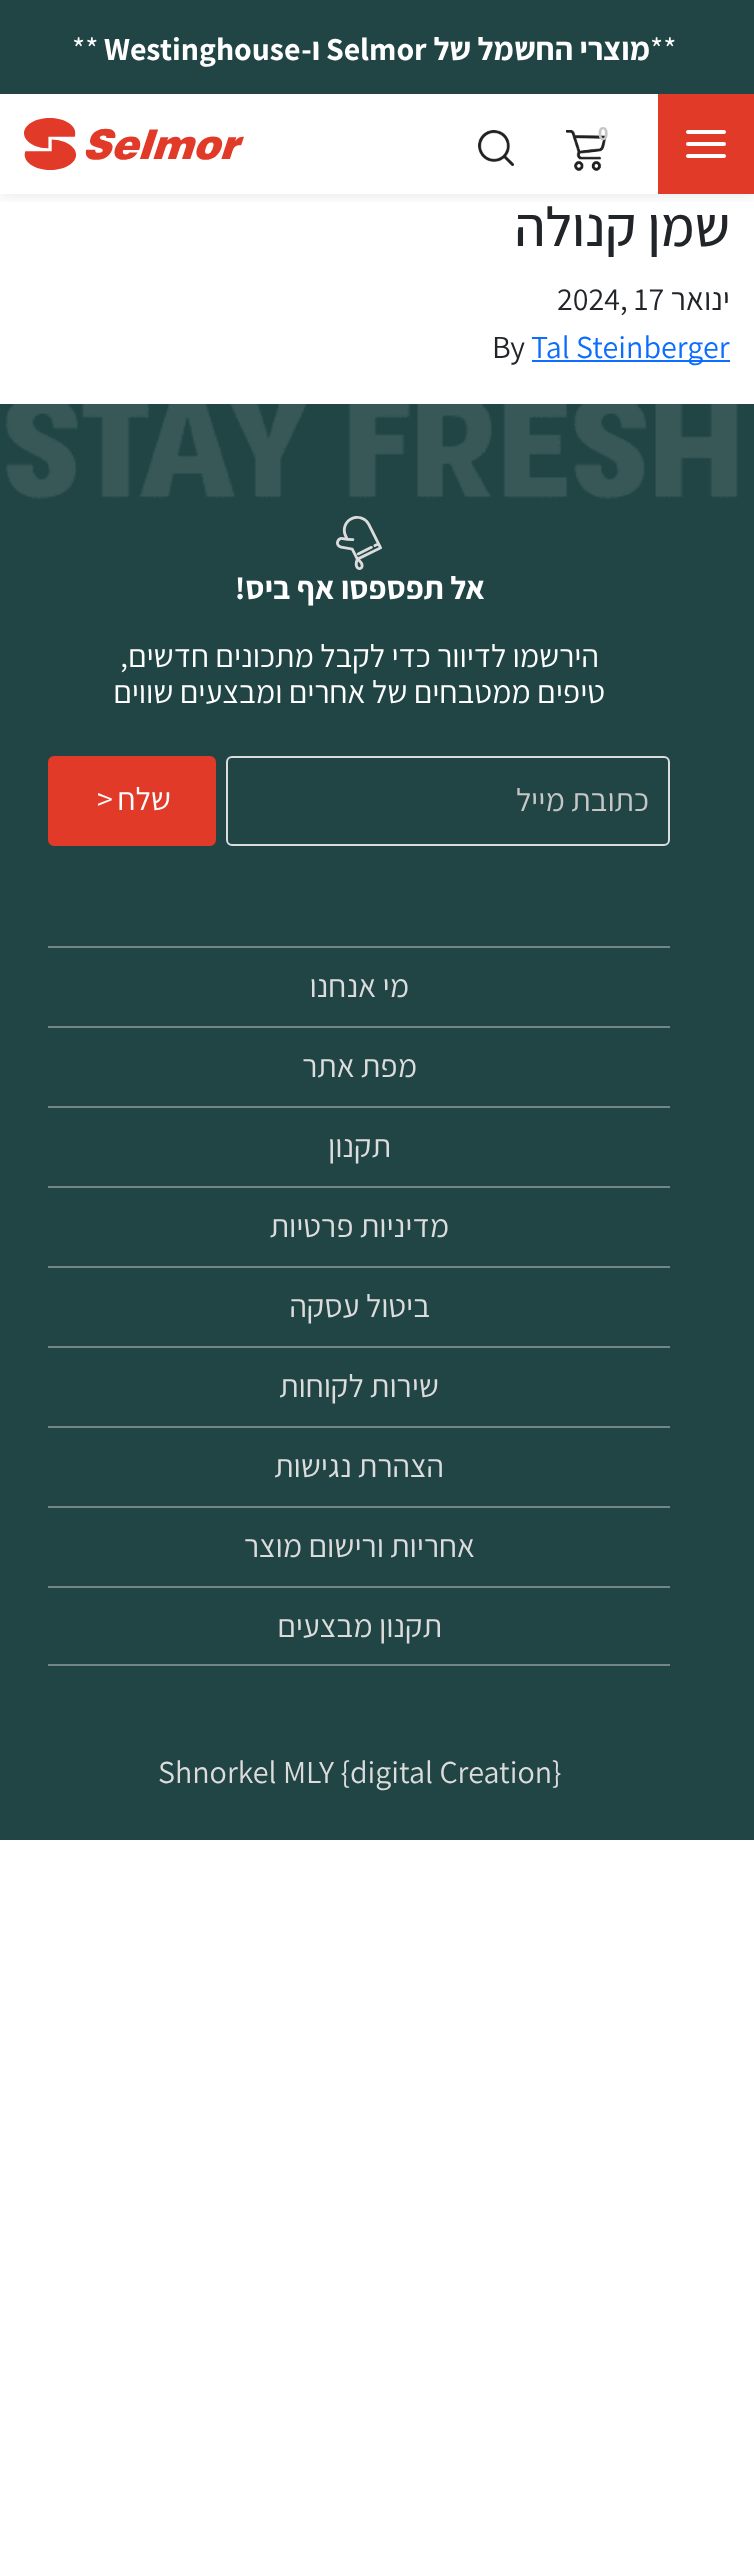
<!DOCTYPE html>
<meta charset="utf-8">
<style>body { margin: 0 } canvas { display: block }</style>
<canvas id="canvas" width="754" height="2566"></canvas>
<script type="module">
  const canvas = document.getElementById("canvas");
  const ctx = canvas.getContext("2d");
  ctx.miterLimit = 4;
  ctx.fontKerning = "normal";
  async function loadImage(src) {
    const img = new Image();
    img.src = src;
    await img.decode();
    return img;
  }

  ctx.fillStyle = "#ffffff";
  ctx.fillRect(0, 0, 754, 2566);
  ctx.fillStyle = "#214545";
  ctx.fillRect(0, 0, 754, 94);
  ctx.font = "32px Assistant";
  ctx.fillStyle = "#ffffff";
  ctx.fillText("**", 650, 60);
  ctx.direction = "rtl";
  ctx.font = "bold 32px Assistant";
  ctx.fillText("מוצרי החשמל של", 650, 60);
  ctx.direction = "ltr";
  ctx.fillText("Selmor", 326, 60);
  ctx.direction = "rtl";
  ctx.fillText("ו-", 320, 60);
  ctx.direction = "ltr";
  ctx.fillText("Westinghouse", 104, 60);
  ctx.font = "32px Assistant";
  ctx.fillText("**", 72, 60);
  ctx.save();
  ctx.beginPath();
  ctx.rect(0, 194, 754, 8);
  ctx.clip();
  ctx.fillStyle = "rgba(0, 0, 0, 0.07)";
  ctx.filter = "blur(7px)";
  ctx.beginPath();
  ctx.rect(0, 98, 754, 100);
  ctx.fill();
  ctx.filter = "none";
  ctx.restore();
  ctx.fillStyle = "#e13a28";
  ctx.fillRect(658, 94, 96, 100);
  ctx.fillStyle = "#ffffff";
  ctx.beginPath();
  ctx.roundRect(686, 130, 40, 4, 2);
  ctx.fill();
  ctx.beginPath();
  ctx.roundRect(686, 142, 40, 4, 2);
  ctx.fill();
  ctx.beginPath();
  ctx.roundRect(686, 154, 40, 4, 2);
  ctx.fill();
  ctx.drawImage(await loadImage("img1.png"), 566, 130, 40, 41);
  ctx.font = "bold 18px Noto Sans";
  ctx.fillStyle = "#c6c6c6";
  ctx.fillText("0", 598, 140);
  ctx.drawImage(await loadImage("img2.png"), 478, 130, 36, 36);
  ctx.drawImage(await loadImage("img3.png"), 24, 118, 220, 52);
  ctx.direction = "rtl";
  ctx.font = "500 55.5px Assistant";
  ctx.fillStyle = "#212529";
  ctx.fillText("שמן קנולה", 730, 246);
  ctx.font = "32px Assistant";
  ctx.fillText("ינואר", 730, 310);
  ctx.direction = "ltr";
  ctx.fillText("2024, 17", 557, 310);
  ctx.fillStyle = "#0d6efd";
  ctx.fillRect(532, 360, 198, 2);
  ctx.fillText("Tal Steinberger", 531, 358);
  ctx.fillStyle = "#212529";
  ctx.fillText("By", 492, 358);
  ctx.fillStyle = "#214545";
  ctx.fillRect(0, 404, 754, 1436);
  ctx.drawImage(await loadImage("img4.png"), 5, 404, 733, 95);
  ctx.drawImage(await loadImage("img5.png"), 336, 516, 46, 54);
  ctx.direction = "rtl";
  ctx.font = "bold 32px Assistant";
  ctx.fillStyle = "#ffffff";
  ctx.fillText("אל תפספסו אף ביס!", 485, 599);
  ctx.font = "32px Assistant";
  ctx.fillText("הירשמו לדיוור כדי לקבל מתכונים חדשים,", 599, 667);
  ctx.fillText("טיפים ממטבחים של אחרים ומבצעים שווים", 605, 703);
  ctx.beginPath();
  ctx.roundRect(227, 757, 442, 88, 5);
  ctx.strokeStyle = "#dcdcdc";
  ctx.lineWidth = 2;
  ctx.stroke();
  ctx.fillStyle = "#c6c6c6";
  ctx.fillText("כתובת מייל", 649, 811);
  ctx.fillStyle = "#e13a28";
  ctx.beginPath();
  ctx.roundRect(50, 758, 164, 86, 4);
  ctx.fill();
  ctx.strokeStyle = "#e13a28";
  ctx.lineWidth = 4;
  ctx.stroke();
  ctx.fillStyle = "#ffffff";
  ctx.fillText("שלח", 171, 810);
  ctx.direction = "ltr";
  ctx.fillText(">", 97, 810);
  ctx.fillStyle = "#748686";
  ctx.fillRect(48, 946, 622, 2);
  ctx.direction = "rtl";
  ctx.fillStyle = "#dcdcdc";
  ctx.fillText("מי אנחנו", 409, 997);
  ctx.fillStyle = "#748686";
  ctx.fillRect(48, 1026, 622, 2);
  ctx.fillStyle = "#dcdcdc";
  ctx.fillText("מפת אתר", 417, 1077);
  ctx.fillStyle = "#748686";
  ctx.fillRect(48, 1106, 622, 2);
  ctx.fillStyle = "#dcdcdc";
  ctx.fillText("תקנון", 391, 1157);
  ctx.fillStyle = "#748686";
  ctx.fillRect(48, 1186, 622, 2);
  ctx.fillStyle = "#dcdcdc";
  ctx.fillText("מדיניות פרטיות", 449, 1237);
  ctx.fillStyle = "#748686";
  ctx.fillRect(48, 1266, 622, 2);
  ctx.fillStyle = "#dcdcdc";
  ctx.fillText("ביטול עסקה", 430, 1317);
  ctx.fillStyle = "#748686";
  ctx.fillRect(48, 1346, 622, 2);
  ctx.fillStyle = "#dcdcdc";
  ctx.fillText("שירות לקוחות", 439, 1397);
  ctx.fillStyle = "#748686";
  ctx.fillRect(48, 1426, 622, 2);
  ctx.fillStyle = "#dcdcdc";
  ctx.fillText("הצהרת נגישות", 444, 1477);
  ctx.fillStyle = "#748686";
  ctx.fillRect(48, 1506, 622, 2);
  ctx.fillStyle = "#dcdcdc";
  ctx.fillText("אחריות ורישום מוצר", 475, 1557);
  ctx.fillStyle = "#748686";
  ctx.fillRect(48, 1586, 622, 2);
  ctx.fillRect(48, 1664, 622, 2);
  ctx.fillStyle = "#dcdcdc";
  ctx.fillText("תקנון מבצעים", 442, 1637);
  ctx.direction = "ltr";
  ctx.fillText("Shnorkel MLY {digital Creation}", 158, 1783);
</script>
